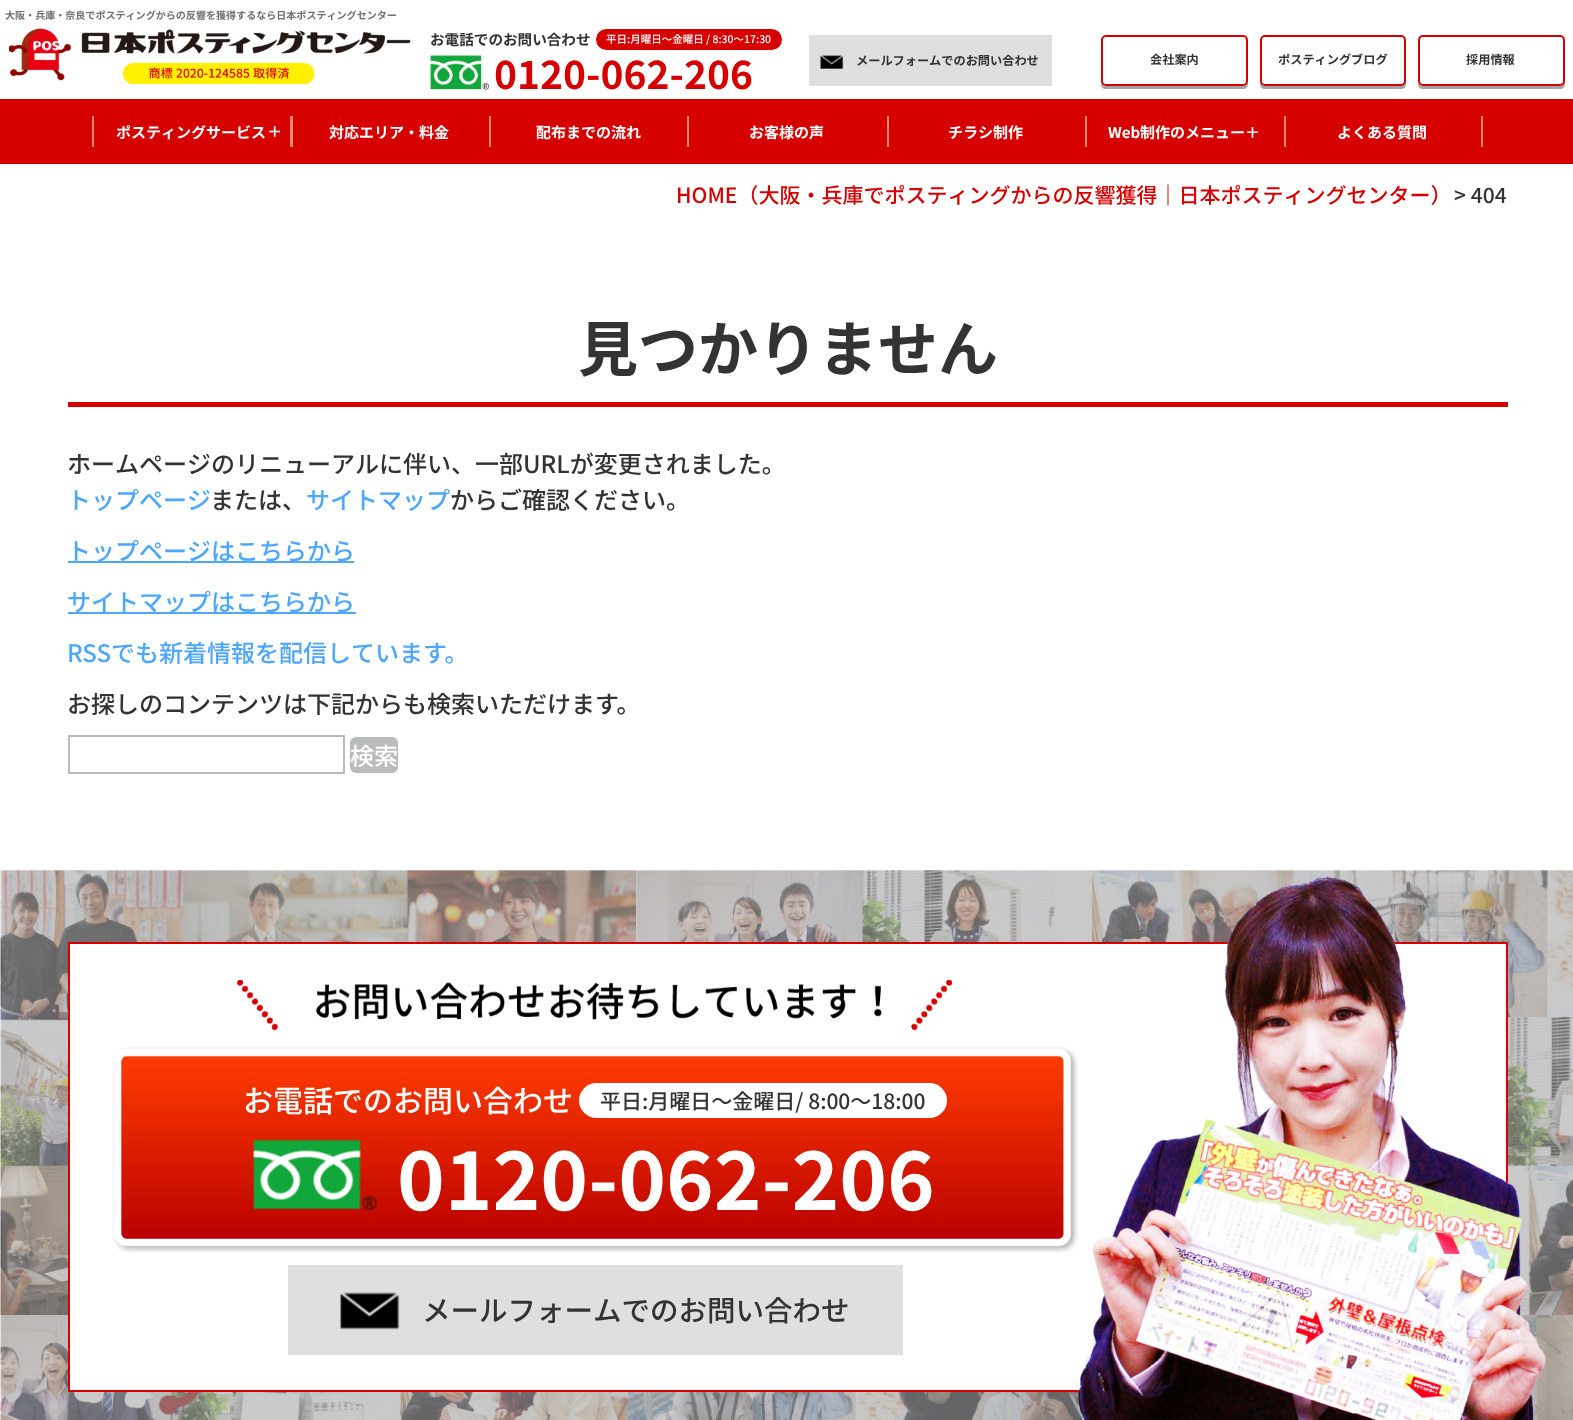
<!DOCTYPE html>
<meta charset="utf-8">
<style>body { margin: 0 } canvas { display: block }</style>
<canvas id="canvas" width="1573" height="1420"></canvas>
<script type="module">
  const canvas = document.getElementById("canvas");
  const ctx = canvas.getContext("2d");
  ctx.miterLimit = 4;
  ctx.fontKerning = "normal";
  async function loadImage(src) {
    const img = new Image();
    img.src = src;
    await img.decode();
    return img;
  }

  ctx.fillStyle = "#ffffff";
  ctx.fillRect(0, 0, 1573, 1420);
  ctx.font = "bold 10.05px Noto Sans JP";
  ctx.fillStyle = "#717071";
  ctx.fillText("大阪・兵庫・奈良でポスティングからの反響を獲得するなら日本ポスティングセンター", 5, 19);
  ctx.font = "bold 14.6px Noto Sans JP";
  ctx.fillStyle = "#333333";
  ctx.fillText("お電話でのお問い合わせ", 430, 45);
  ctx.fillStyle = "#d60000";
  ctx.beginPath();
  ctx.roundRect(596, 29, 186, 21, 10.5);
  ctx.fill();
  ctx.font = "500 10.5px Noto Sans JP";
  ctx.fillStyle = "#ffffff";
  ctx.fillText("平日:月曜日～金曜日 / 8:30～17:30", 606, 43);
  ctx.drawImage(await loadImage("img1.png"), 430, 55, 59, 35);
  ctx.font = "bold 39px Noto Sans JP";
  ctx.fillStyle = "#d60000";
  ctx.fillText("0120-062-206", 494, 89);
  ctx.fillStyle = "#dfdfe0";
  ctx.fillRect(809, 35, 243, 51);
  ctx.drawImage(await loadImage("img2.png"), 820, 55, 24, 14);
  ctx.font = "bold 12.2px Noto Sans JP";
  ctx.fillStyle = "#333333";
  ctx.fillText("メールフォームでのお問い合わせ", 856, 65);
  ctx.drawImage(await loadImage("img3.png"), 9, 28, 402, 56);
  ctx.fillStyle = "#a5a5a6";
  ctx.beginPath();
  ctx.moveTo(1101, 81);
  ctx.lineTo(1101, 84);
  ctx.bezierCurveTo(1101, 87, 1103, 89, 1106, 89);
  ctx.lineTo(1243, 89);
  ctx.bezierCurveTo(1246, 89, 1248, 87, 1248, 84);
  ctx.lineTo(1248, 81);
  ctx.bezierCurveTo(1248, 83, 1246, 86, 1243, 86);
  ctx.lineTo(1106, 86);
  ctx.bezierCurveTo(1103, 86, 1101, 83, 1101, 81);
  ctx.closePath();
  ctx.fill();
  ctx.fillStyle = "#ffffff";
  ctx.beginPath();
  ctx.roundRect(1102, 36, 145, 49, 4);
  ctx.fill();
  ctx.strokeStyle = "#d60000";
  ctx.lineWidth = 2;
  ctx.stroke();
  ctx.fillStyle = "#333333";
  ctx.fillText("会社案内", 1150, 64);
  ctx.fillStyle = "#a5a5a6";
  ctx.beginPath();
  ctx.moveTo(1260, 81);
  ctx.lineTo(1260, 84);
  ctx.bezierCurveTo(1260, 87, 1262, 89, 1265, 89);
  ctx.lineTo(1401, 89);
  ctx.bezierCurveTo(1404, 89, 1406, 87, 1406, 84);
  ctx.lineTo(1406, 43);
  ctx.lineTo(1406, 41);
  ctx.lineTo(1406, 81);
  ctx.bezierCurveTo(1406, 83, 1403, 86, 1401, 86);
  ctx.lineTo(1265, 86);
  ctx.bezierCurveTo(1262, 86, 1260, 83, 1260, 81);
  ctx.closePath();
  ctx.fill();
  ctx.fillStyle = "#ffffff";
  ctx.beginPath();
  ctx.roundRect(1261, 36, 144, 49, 4);
  ctx.fill();
  ctx.stroke();
  ctx.fillStyle = "#333333";
  ctx.fillText("ポスティングブログ", 1278, 64);
  ctx.fillStyle = "#a5a5a6";
  ctx.beginPath();
  ctx.moveTo(1418, 83);
  ctx.lineTo(1418, 84);
  ctx.bezierCurveTo(1418, 87, 1420, 89, 1423, 89);
  ctx.lineTo(1560, 89);
  ctx.bezierCurveTo(1563, 89, 1565, 87, 1565, 84);
  ctx.lineTo(1565, 43);
  ctx.lineTo(1564, 41);
  ctx.lineTo(1564, 81);
  ctx.bezierCurveTo(1564, 83, 1562, 86, 1560, 86);
  ctx.lineTo(1422, 86);
  ctx.bezierCurveTo(1420, 86, 1419, 84, 1418, 83);
  ctx.closePath();
  ctx.fill();
  ctx.fillStyle = "#ffffff";
  ctx.beginPath();
  ctx.roundRect(1419, 36, 145, 49, 4);
  ctx.fill();
  ctx.stroke();
  ctx.fillStyle = "#333333";
  ctx.fillText("採用情報", 1466, 64);
  ctx.fillStyle = "#d60000";
  ctx.fillRect(0, 99, 1573, 65);
  ctx.fillStyle = "#ff8872";
  ctx.fillRect(92, 116, 2, 31);
  ctx.font = "bold 15px Noto Sans JP";
  ctx.fillStyle = "#ffffff";
  ctx.fillText("ポスティングサービス", 116, 138);
  ctx.save();
  ctx.translate(269, 124);
  ctx.rotate(90 * Math.PI / 180);
  ctx.fillText("＋", 0, 0);
  ctx.restore();
  ctx.fillStyle = "#ff8872";
  ctx.fillRect(290, 116, 3, 31);
  ctx.fillStyle = "#ffffff";
  ctx.fillText("対応エリア・料金", 329, 138);
  ctx.fillStyle = "#ff8872";
  ctx.fillRect(489, 116, 2, 31);
  ctx.fillStyle = "#ffffff";
  ctx.fillText("配布までの流れ", 536, 138);
  ctx.fillStyle = "#ff8872";
  ctx.fillRect(687, 116, 2, 31);
  ctx.fillStyle = "#ffffff";
  ctx.fillText("お客様の声", 749, 138);
  ctx.fillStyle = "#ff8872";
  ctx.fillRect(887, 116, 2, 31);
  ctx.fillStyle = "#ffffff";
  ctx.fillText("チラシ制作", 948, 138);
  ctx.fillStyle = "#ff8872";
  ctx.fillRect(1085, 116, 2, 31);
  ctx.fillStyle = "#ffffff";
  ctx.fillText("Web制作のメニュー＋", 1108, 138);
  ctx.fillStyle = "#ff8872";
  ctx.fillRect(1284, 116, 2, 31);
  ctx.fillStyle = "#ffffff";
  ctx.fillText("よくある質問", 1337, 138);
  ctx.fillStyle = "#ff8872";
  ctx.fillRect(1481, 116, 2, 31);
  ctx.font = "500 21px Noto Sans JP";
  ctx.fillStyle = "#d60000";
  ctx.fillText("HOME（大阪・兵庫でポスティングからの反響獲得｜日本ポスティングセンター）", 676, 203);
  ctx.fillStyle = "#333333";
  ctx.fillText("> 404", 1454, 203);
  ctx.fillStyle = "#d60000";
  ctx.fillRect(68, 402, 1440, 5);
  ctx.font = "bold 60px Noto Sans JP";
  ctx.fillStyle = "#333333";
  ctx.fillText("見つかりません", 578, 371);
  ctx.font = "500 24px Noto Sans JP";
  ctx.fillText("ホームページのリニューアルに伴い、一部URLが変更されました。", 67, 473);
  ctx.fillStyle = "#4da6ff";
  ctx.fillText("トップページ", 67, 509);
  ctx.fillStyle = "#333333";
  ctx.fillText("または、", 210, 509);
  ctx.fillStyle = "#4da6ff";
  ctx.fillText("サイトマップ", 306, 509);
  ctx.fillStyle = "#333333";
  ctx.fillText("からご確認ください。", 450, 509);
  ctx.fillStyle = "#4da6ff";
  ctx.fillRect(68, 561, 286, 2);
  ctx.fillText("トップページはこちらから", 67, 560);
  ctx.fillRect(68, 612, 288, 2);
  ctx.fillText("サイトマップはこちらから", 67, 611);
  ctx.fillText("RSSでも新着情報を配信しています。", 67, 662);
  ctx.fillStyle = "#333333";
  ctx.fillText("お探しのコンテンツは下記からも検索いただけます。", 67, 713);
  ctx.strokeStyle = "#babbbb";
  ctx.strokeRect(69, 736, 275, 37);
  ctx.fillStyle = "#babbbb";
  ctx.beginPath();
  ctx.roundRect(350, 737, 48, 36, 6);
  ctx.fill();
  ctx.fillStyle = "#ffffff";
  ctx.fillText("検索", 350, 765);
  ctx.drawImage(await loadImage("img4.png"), 0, 870, 1573, 550);
  ctx.beginPath();
  ctx.rect(69, 943, 1438, 448);
  ctx.fill();
  ctx.strokeStyle = "#d60000";
  ctx.stroke();
  ctx.drawImage(await loadImage("img5.png"), 237, 980, 715, 51);
  ctx.drawImage(await loadImage("img7.png"), 112, 1047, 967, 206);
  ctx.drawImage(await loadImage("img6.png"), 1078, 877, 468, 543);
  ctx.font = "500 30px Noto Sans JP";
  ctx.fillText("お電話でのお問い合わせ", 243, 1112);
  ctx.beginPath();
  ctx.roundRect(579, 1083, 368, 35, 17.5);
  ctx.fill();
  ctx.font = "500 21px Noto Sans JP";
  ctx.fillStyle = "#333333";
  ctx.fillText("平日:月曜日～金曜日/ 8:00～18:00", 600, 1109);
  ctx.drawImage(await loadImage("img8.png"), 253, 1139, 124, 72);
  ctx.font = "bold 81px Noto Sans JP";
  ctx.fillStyle = "#ffffff";
  ctx.fillText("0120-062-206", 397, 1210);
  ctx.fillStyle = "#dfdfe0";
  ctx.fillRect(288, 1265, 615, 90);
  ctx.drawImage(await loadImage("img9.png"), 340, 1292, 60, 38);
  ctx.font = "500 28.5px Noto Sans JP";
  ctx.fillStyle = "#333333";
  ctx.fillText("メールフォームでのお問い合わせ", 422, 1321);
</script>
